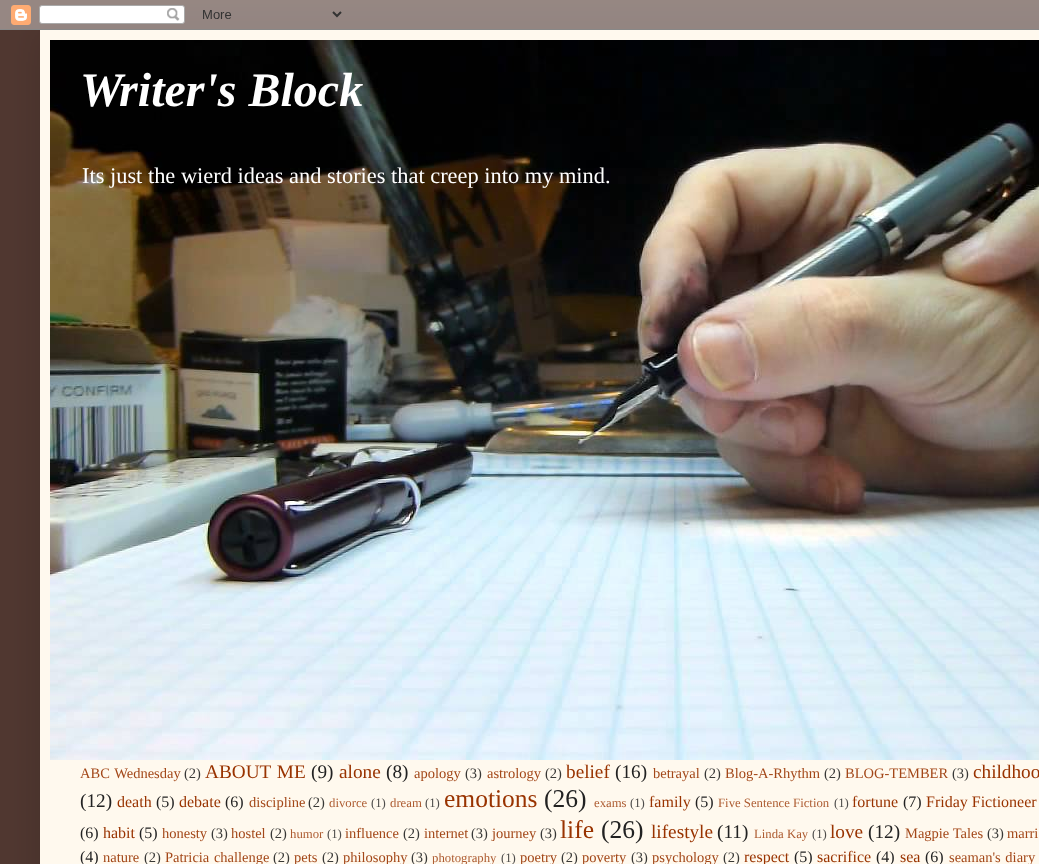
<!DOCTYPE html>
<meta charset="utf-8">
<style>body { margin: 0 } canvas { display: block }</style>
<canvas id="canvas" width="1039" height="864"></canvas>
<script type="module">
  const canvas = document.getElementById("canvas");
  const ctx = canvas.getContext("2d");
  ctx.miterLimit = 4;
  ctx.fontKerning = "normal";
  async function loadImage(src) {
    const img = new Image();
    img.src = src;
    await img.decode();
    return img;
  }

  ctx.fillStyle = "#513831";
  ctx.fillRect(0, 0, 1039, 864);
  ctx.fillStyle = "rgba(0, 0, 0, 0.15)";
  ctx.filter = "blur(20px)";
  ctx.beginPath();
  ctx.rect(40, 30, 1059, 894);
  ctx.fill();
  ctx.filter = "none";
  ctx.drawImage(await loadImage("img1.png"), 0, 0, 1039, 30);
  ctx.fillStyle = "#fff9ee";
  ctx.fillRect(40, 30, 999, 834);
  ctx.drawImage(await loadImage("img2.png"), 50, 40, 989, 720);
  ctx.font = "italic bold 48px Liberation Serif";
  ctx.fillStyle = "#ffffff";
  ctx.fillText("Writer's Block", 80, 106);
  ctx.font = "22.4px Liberation Serif";
  ctx.fillText("Its just the wierd ideas and stories that creep into my mind.", 82, 183);
  ctx.wordSpacing = "1px";
  ctx.font = "14.5px Liberation Serif";
  ctx.fillStyle = "#a34718";
  ctx.fillText("ABC Wednesday", 80, 778);
  ctx.wordSpacing = "0px";
  ctx.fillStyle = "#383836";
  ctx.fillText("(2)", 184, 778);
  ctx.wordSpacing = "1px";
  ctx.font = "19.25px Liberation Serif";
  ctx.fillStyle = "#993300";
  ctx.fillText("ABOUT ME", 205, 778);
  ctx.wordSpacing = "0px";
  ctx.fillStyle = "#222222";
  ctx.fillText("(9)", 311, 778);
  ctx.fillStyle = "#993300";
  ctx.fillText("alone", 339, 778);
  ctx.fillStyle = "#222222";
  ctx.fillText("(8)", 386, 778);
  ctx.font = "14.5px Liberation Serif";
  ctx.fillStyle = "#a34718";
  ctx.fillText("apology", 414, 778);
  ctx.fillStyle = "#383836";
  ctx.fillText("(3)", 465, 778);
  ctx.fillStyle = "#a34718";
  ctx.fillText("astrology", 487, 778);
  ctx.fillStyle = "#383836";
  ctx.fillText("(2)", 545, 778);
  ctx.font = "19.25px Liberation Serif";
  ctx.fillStyle = "#993300";
  ctx.fillText("belief", 566, 778);
  ctx.fillStyle = "#222222";
  ctx.fillText("(16)", 615, 778);
  ctx.font = "14.5px Liberation Serif";
  ctx.fillStyle = "#a34718";
  ctx.fillText("betrayal", 653, 778);
  ctx.fillStyle = "#383836";
  ctx.fillText("(2)", 704, 778);
  ctx.fillStyle = "#a34718";
  ctx.fillText("Blog-A-Rhythm", 725, 778);
  ctx.fillStyle = "#383836";
  ctx.fillText("(2)", 824, 778);
  ctx.fillStyle = "#a34718";
  ctx.fillText("BLOG-TEMBER", 845, 778);
  ctx.fillStyle = "#383836";
  ctx.fillText("(3)", 952, 778);
  ctx.font = "19.25px Liberation Serif";
  ctx.fillStyle = "#993300";
  ctx.fillText("childhoo", 973, 778);
  ctx.fillStyle = "#222222";
  ctx.fillText("(12)", 80, 807);
  ctx.font = "16px Liberation Serif";
  ctx.fillStyle = "#993300";
  ctx.fillText("death", 117, 807);
  ctx.fillStyle = "#222222";
  ctx.fillText("(5)", 156, 807);
  ctx.fillStyle = "#993300";
  ctx.fillText("debate", 179, 807);
  ctx.fillStyle = "#222222";
  ctx.fillText("(6)", 225, 807);
  ctx.font = "14.5px Liberation Serif";
  ctx.fillStyle = "#a34718";
  ctx.fillText("discipline", 249, 807);
  ctx.fillStyle = "#383836";
  ctx.fillText("(2)", 308, 807);
  ctx.font = "12.75px Liberation Serif";
  ctx.fillStyle = "#ad5b30";
  ctx.fillText("divorce", 329, 807);
  ctx.fillStyle = "#4e4d4b";
  ctx.fillText("(1)", 371, 807);
  ctx.fillStyle = "#ad5b30";
  ctx.fillText("dream", 390, 807);
  ctx.fillStyle = "#4e4d4b";
  ctx.fillText("(1)", 425, 807);
  ctx.font = "25.5px Liberation Serif";
  ctx.fillStyle = "#993300";
  ctx.fillText("emotions", 444, 807);
  ctx.fillStyle = "#222222";
  ctx.fillText("(26)", 544, 807);
  ctx.font = "12.75px Liberation Serif";
  ctx.fillStyle = "#ad5b30";
  ctx.fillText("exams", 594, 807);
  ctx.fillStyle = "#4e4d4b";
  ctx.fillText("(1)", 630, 807);
  ctx.font = "16px Liberation Serif";
  ctx.fillStyle = "#993300";
  ctx.fillText("family", 649, 807);
  ctx.fillStyle = "#222222";
  ctx.fillText("(5)", 695, 807);
  ctx.font = "12.75px Liberation Serif";
  ctx.fillStyle = "#ad5b30";
  ctx.fillText("Five Sentence Fiction", 718, 807);
  ctx.fillStyle = "#4e4d4b";
  ctx.fillText("(1)", 834, 807);
  ctx.font = "16px Liberation Serif";
  ctx.fillStyle = "#993300";
  ctx.fillText("fortune", 852, 807);
  ctx.fillStyle = "#222222";
  ctx.fillText("(7)", 903, 807);
  ctx.fillStyle = "#993300";
  ctx.fillText("Friday Fictioneer", 926, 807);
  ctx.fillStyle = "#222222";
  ctx.fillText("(6)", 80, 838);
  ctx.fillStyle = "#993300";
  ctx.fillText("habit", 103, 838);
  ctx.fillStyle = "#222222";
  ctx.fillText("(5)", 139, 838);
  ctx.font = "14.5px Liberation Serif";
  ctx.fillStyle = "#a34718";
  ctx.fillText("honesty", 162, 838);
  ctx.fillStyle = "#383836";
  ctx.fillText("(3)", 211, 838);
  ctx.fillStyle = "#a34718";
  ctx.fillText("hostel", 231, 838);
  ctx.fillStyle = "#383836";
  ctx.fillText("(2)", 270, 838);
  ctx.font = "12.75px Liberation Serif";
  ctx.fillStyle = "#ad5b30";
  ctx.fillText("humor", 290, 838);
  ctx.fillStyle = "#4e4d4b";
  ctx.fillText("(1)", 327, 838);
  ctx.font = "14.5px Liberation Serif";
  ctx.fillStyle = "#a34718";
  ctx.fillText("influence", 345, 838);
  ctx.fillStyle = "#383836";
  ctx.fillText("(2)", 403, 838);
  ctx.fillStyle = "#a34718";
  ctx.fillText("internet", 424, 838);
  ctx.fillStyle = "#383836";
  ctx.fillText("(3)", 471, 838);
  ctx.fillStyle = "#a34718";
  ctx.fillText("journey", 492, 838);
  ctx.fillStyle = "#383836";
  ctx.fillText("(3)", 540, 838);
  ctx.font = "25.5px Liberation Serif";
  ctx.fillStyle = "#993300";
  ctx.fillText("life", 560, 838);
  ctx.fillStyle = "#222222";
  ctx.fillText("(26)", 601, 838);
  ctx.font = "19.25px Liberation Serif";
  ctx.fillStyle = "#993300";
  ctx.fillText("lifestyle", 651, 838);
  ctx.fillStyle = "#222222";
  ctx.fillText("(11)", 717, 838);
  ctx.font = "12.75px Liberation Serif";
  ctx.fillStyle = "#ad5b30";
  ctx.fillText("Linda Kay", 754, 838);
  ctx.fillStyle = "#4e4d4b";
  ctx.fillText("(1)", 812, 838);
  ctx.font = "19.25px Liberation Serif";
  ctx.fillStyle = "#993300";
  ctx.fillText("love", 830, 838);
  ctx.fillStyle = "#222222";
  ctx.fillText("(12)", 868, 838);
  ctx.font = "14.5px Liberation Serif";
  ctx.fillStyle = "#a34718";
  ctx.fillText("Magpie Tales", 905, 838);
  ctx.fillStyle = "#383836";
  ctx.fillText("(3)", 987, 838);
  ctx.fillStyle = "#a34718";
  ctx.fillText("marri", 1007, 838);
  ctx.font = "16px Liberation Serif";
  ctx.fillStyle = "#222222";
  ctx.fillText("(4)", 80, 862);
  ctx.font = "14.5px Liberation Serif";
  ctx.fillStyle = "#a34718";
  ctx.fillText("nature", 103, 862);
  ctx.fillStyle = "#383836";
  ctx.fillText("(2)", 144, 862);
  ctx.wordSpacing = "1px";
  ctx.fillStyle = "#a34718";
  ctx.fillText("Patricia challenge", 165, 862);
  ctx.wordSpacing = "0px";
  ctx.fillStyle = "#383836";
  ctx.fillText("(2)", 273, 862);
  ctx.fillStyle = "#a34718";
  ctx.fillText("pets", 294, 862);
  ctx.fillStyle = "#383836";
  ctx.fillText("(2)", 322, 862);
  ctx.fillStyle = "#a34718";
  ctx.fillText("philosophy", 343, 862);
  ctx.fillStyle = "#383836";
  ctx.fillText("(3)", 411, 862);
  ctx.font = "12.75px Liberation Serif";
  ctx.fillStyle = "#ad5b30";
  ctx.fillText("photography", 432, 862);
  ctx.fillStyle = "#4e4d4b";
  ctx.fillText("(1)", 501, 862);
  ctx.font = "14.5px Liberation Serif";
  ctx.fillStyle = "#a34718";
  ctx.fillText("poetry", 520, 862);
  ctx.fillStyle = "#383836";
  ctx.fillText("(2)", 561, 862);
  ctx.fillStyle = "#a34718";
  ctx.fillText("poverty", 582, 862);
  ctx.fillStyle = "#383836";
  ctx.fillText("(3)", 631, 862);
  ctx.fillStyle = "#a34718";
  ctx.fillText("psychology", 652, 862);
  ctx.fillStyle = "#383836";
  ctx.fillText("(2)", 723, 862);
  ctx.font = "16px Liberation Serif";
  ctx.fillStyle = "#993300";
  ctx.fillText("respect", 744, 862);
  ctx.fillStyle = "#222222";
  ctx.fillText("(5)", 794, 862);
  ctx.fillStyle = "#993300";
  ctx.fillText("sacrifice", 817, 862);
  ctx.fillStyle = "#222222";
  ctx.fillText("(4)", 876, 862);
  ctx.fillStyle = "#993300";
  ctx.fillText("sea", 900, 862);
  ctx.fillStyle = "#222222";
  ctx.fillText("(6)", 925, 862);
  ctx.wordSpacing = "1px";
  ctx.font = "14.5px Liberation Serif";
  ctx.fillStyle = "#a34718";
  ctx.fillText("seaman's diary", 949, 862);
</script>
